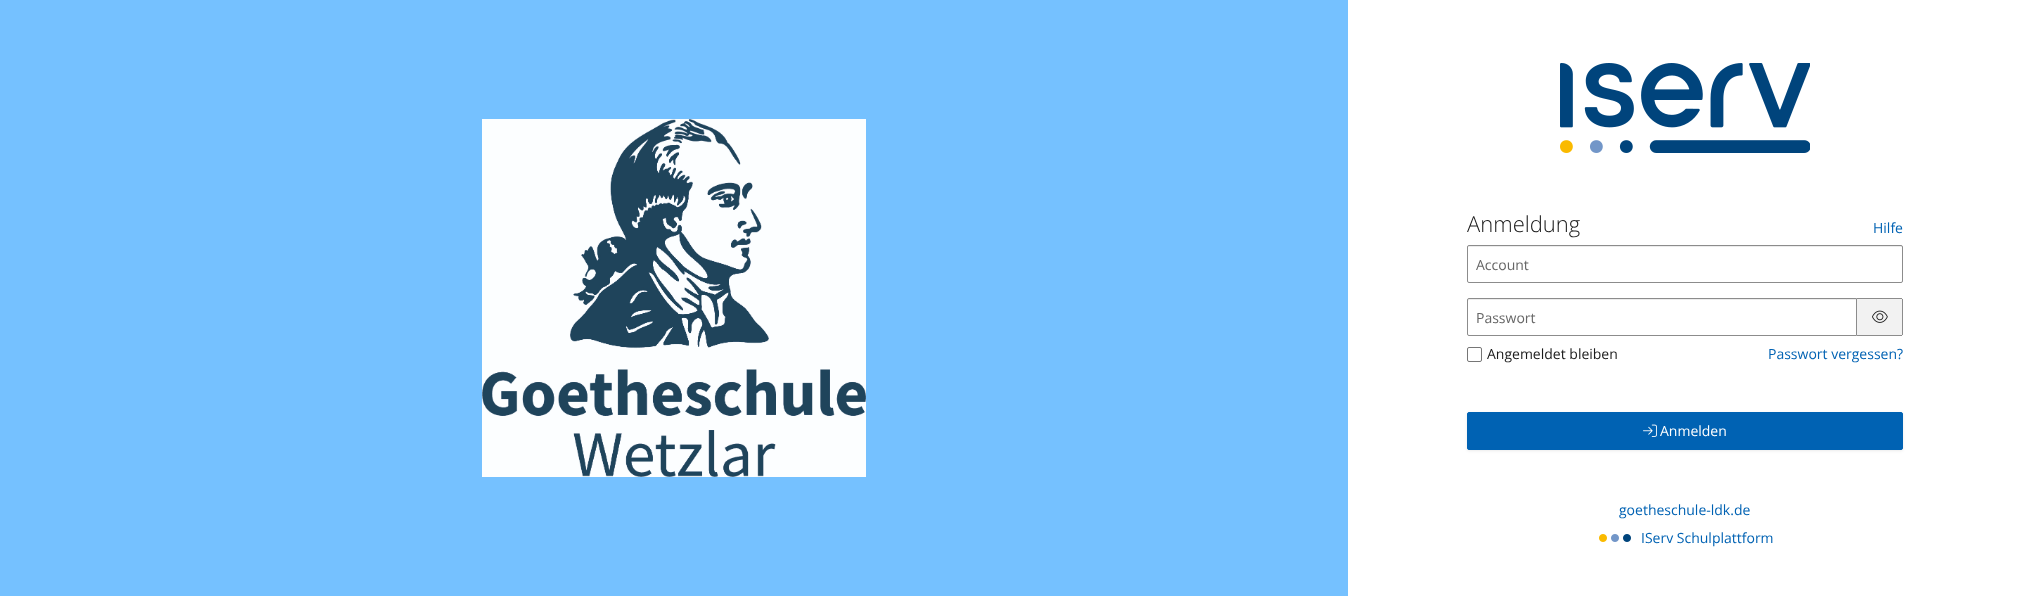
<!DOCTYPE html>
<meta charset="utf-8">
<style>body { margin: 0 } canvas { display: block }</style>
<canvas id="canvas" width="2022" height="596"></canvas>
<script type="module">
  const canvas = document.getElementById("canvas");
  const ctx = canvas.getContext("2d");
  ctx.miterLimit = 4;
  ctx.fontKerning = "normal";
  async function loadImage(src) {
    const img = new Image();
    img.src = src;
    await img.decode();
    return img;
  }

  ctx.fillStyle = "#ffffff";
  ctx.fillRect(0, 0, 2022, 596);
  ctx.fillStyle = "#75c1ff";
  ctx.fillRect(0, 0, 1348, 596);
  ctx.drawImage(await loadImage("img1.png"), 482, 119, 384, 358);
  ctx.drawImage(await loadImage("img2.png"), 1560, 63, 250, 90);
  ctx.font = "300 22px Open Sans";
  ctx.fillStyle = "#1a1a1a";
  ctx.fillText("Anmeldung", 1467, 232);
  ctx.font = "14px Open Sans";
  ctx.fillStyle = "#0062b3";
  ctx.fillText("Hilfe", 1873, 233);
  ctx.fillStyle = "#ececec";
  ctx.beginPath();
  ctx.moveTo(1469, 247);
  ctx.lineTo(1901, 247);
  ctx.lineTo(1902, 247);
  ctx.lineTo(1902, 248);
  ctx.lineTo(1902, 246);
  ctx.lineTo(1685, 246);
  ctx.lineTo(1469, 246);
  ctx.lineTo(1468, 247);
  ctx.lineTo(1468, 248);
  ctx.bezierCurveTo(1468, 247, 1468, 247, 1469, 247);
  ctx.closePath();
  ctx.fill();
  ctx.beginPath();
  ctx.roundRect(1467.5, 245.5, 435, 37, 1.5);
  ctx.strokeStyle = "#8c8c8c";
  ctx.stroke();
  ctx.fillStyle = "#666666";
  ctx.fillText("Account", 1476, 270);
  ctx.fillStyle = "#ececec";
  ctx.beginPath();
  ctx.moveTo(1469, 300);
  ctx.lineTo(1856, 300);
  ctx.lineTo(1856, 299);
  ctx.lineTo(1469, 299);
  ctx.bezierCurveTo(1468, 299, 1468, 300, 1468, 301);
  ctx.closePath();
  ctx.fill();
  ctx.beginPath();
  ctx.roundRect(1467.5, 298.5, 389, 37, [1.5, 0, 0, 1.5]);
  ctx.stroke();
  ctx.fillStyle = "#666666";
  ctx.fillText("Passwort", 1476, 323);
  ctx.fillStyle = "#f2f2f2";
  ctx.beginPath();
  ctx.roundRect(1857, 298, 46, 38, [0, 2, 2, 0]);
  ctx.fill();
  ctx.fillStyle = "#8c8c8c";
  ctx.fillRect(1857, 298, 45, 1);
  ctx.fillRect(1902, 299, 1, 36);
  ctx.fillRect(1857, 335, 45, 1);
  ctx.drawImage(await loadImage("img3.png"), 1872, 310, 16, 13);
  ctx.beginPath();
  ctx.roundRect(1467.5, 347.5, 14, 14, 1.5);
  ctx.strokeStyle = "#767676";
  ctx.stroke();
  ctx.fillStyle = "#1a1a1a";
  ctx.fillText("Angemeldet bleiben", 1487, 359);
  ctx.fillStyle = "#0062b3";
  ctx.fillText("Passwort vergessen?", 1768, 359);
  ctx.fillStyle = "rgba(0, 0, 0, 0.08)";
  ctx.filter = "blur(1.5px)";
  ctx.beginPath();
  ctx.roundRect(1467, 413, 436, 38, 2);
  ctx.fill();
  ctx.filter = "none";
  ctx.fillStyle = "#0062b3";
  ctx.beginPath();
  ctx.roundRect(1467.5, 412.5, 435, 37, 1.5);
  ctx.fill();
  ctx.strokeStyle = "#0062b3";
  ctx.stroke();
  ctx.drawImage(await loadImage("img4.png"), 1643, 424, 14, 13);
  ctx.fillStyle = "#ffffff";
  ctx.fillText("Anmelden", 1660, 436);
  ctx.fillStyle = "#0062b3";
  ctx.fillText("goetheschule-ldk.de", 1619, 515);
  ctx.drawImage(await loadImage("img5.png"), 1599, 534, 8, 8);
  ctx.drawImage(await loadImage("img6.png"), 1611, 534, 8, 8);
  ctx.drawImage(await loadImage("img7.png"), 1623, 534, 8, 8);
  ctx.fillText("IServ Schulplattform", 1641, 543);
</script>
